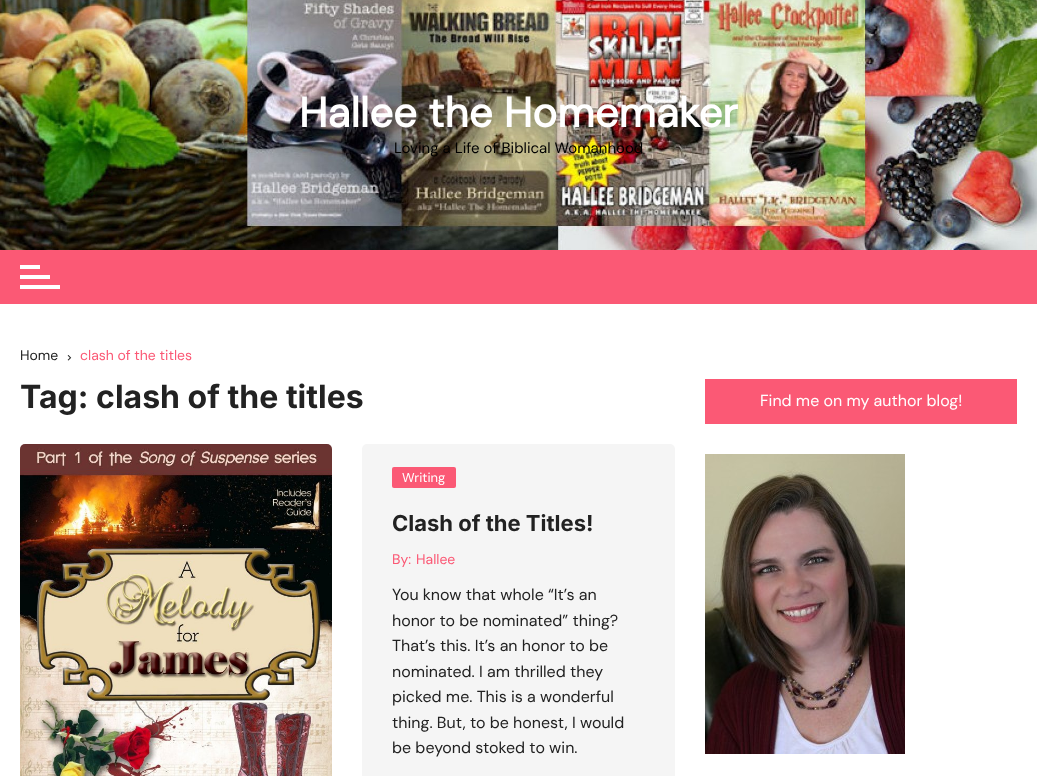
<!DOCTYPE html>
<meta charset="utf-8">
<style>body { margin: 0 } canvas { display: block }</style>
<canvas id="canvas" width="1037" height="776"></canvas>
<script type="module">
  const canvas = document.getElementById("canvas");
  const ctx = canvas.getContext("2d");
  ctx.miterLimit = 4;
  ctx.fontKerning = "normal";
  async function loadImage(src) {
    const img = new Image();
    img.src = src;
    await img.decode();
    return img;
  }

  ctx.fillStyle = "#ffffff";
  ctx.fillRect(0, 0, 1037, 776);
  ctx.drawImage(await loadImage("img1.png"), 0, 0, 1037, 250);
  ctx.font = "bold 42px DM Sans";
  ctx.fillText("Hallee the Homemaker", 299, 127);
  ctx.font = "15px DM Sans";
  ctx.fillStyle = "#000000";
  ctx.fillText("Loving a Life of Biblical Womanhood", 394, 153);
  ctx.fillStyle = "#fb5975";
  ctx.fillRect(0, 250, 1037, 54);
  ctx.fillStyle = "#ffffff";
  ctx.fillRect(20, 265, 20, 4);
  ctx.fillRect(20, 275, 30, 4);
  ctx.fillRect(20, 285, 40, 4);
  ctx.font = "14px DM Sans";
  ctx.fillStyle = "#222222";
  ctx.fillText("Home", 20, 360);
  ctx.drawImage(await loadImage("img2.png"), 67, 355, 5, 6);
  ctx.fillStyle = "#fb5975";
  ctx.fillText("clash of the titles", 80, 360);
  ctx.font = "bold 32px Inter";
  ctx.fillStyle = "#222222";
  ctx.fillText("Tag: clash of the titles", 20, 408);
  ctx.drawImage(await loadImage("img3.png"), 20, 444, 312, 332);
  ctx.fillStyle = "#f5f5f5";
  ctx.beginPath();
  ctx.roundRect(362, 444, 313, 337, 5);
  ctx.fill();
  ctx.fillStyle = "#fb5975";
  ctx.beginPath();
  ctx.roundRect(392, 467, 64, 21, 2);
  ctx.fill();
  ctx.font = "13px DM Sans";
  ctx.fillStyle = "#ffffff";
  ctx.fillText("Writing", 402, 482);
  ctx.font = "bold 22px Inter";
  ctx.fillStyle = "#222222";
  ctx.fillText("Clash of the Titles!", 392, 531);
  ctx.font = "14px DM Sans";
  ctx.fillStyle = "#fb5975";
  ctx.fillText("By:", 392, 564);
  ctx.fillText("Hallee", 416, 564);
  ctx.font = "16px DM Sans";
  ctx.fillStyle = "#222222";
  ctx.fillText("You know that whole “It’s an", 392, 600);
  ctx.fillText("honor to be nominated” thing?", 392, 626);
  ctx.fillText("That’s this. It’s an honor to be", 392, 651);
  ctx.fillText("nominated. I am thrilled they", 392, 677);
  ctx.fillText("picked me. This is a wonderful", 392, 702);
  ctx.fillText("thing. But, to be honest, I would", 392, 728);
  ctx.fillText("be beyond stoked to win.", 392, 753);
  ctx.fillStyle = "#fb5975";
  ctx.fillRect(705, 379, 312, 45);
  ctx.fillStyle = "#ffffff";
  ctx.fillText("Find me on my author blog!", 760, 406);
  ctx.drawImage(await loadImage("img4.png"), 705, 454, 200, 300);
</script>
